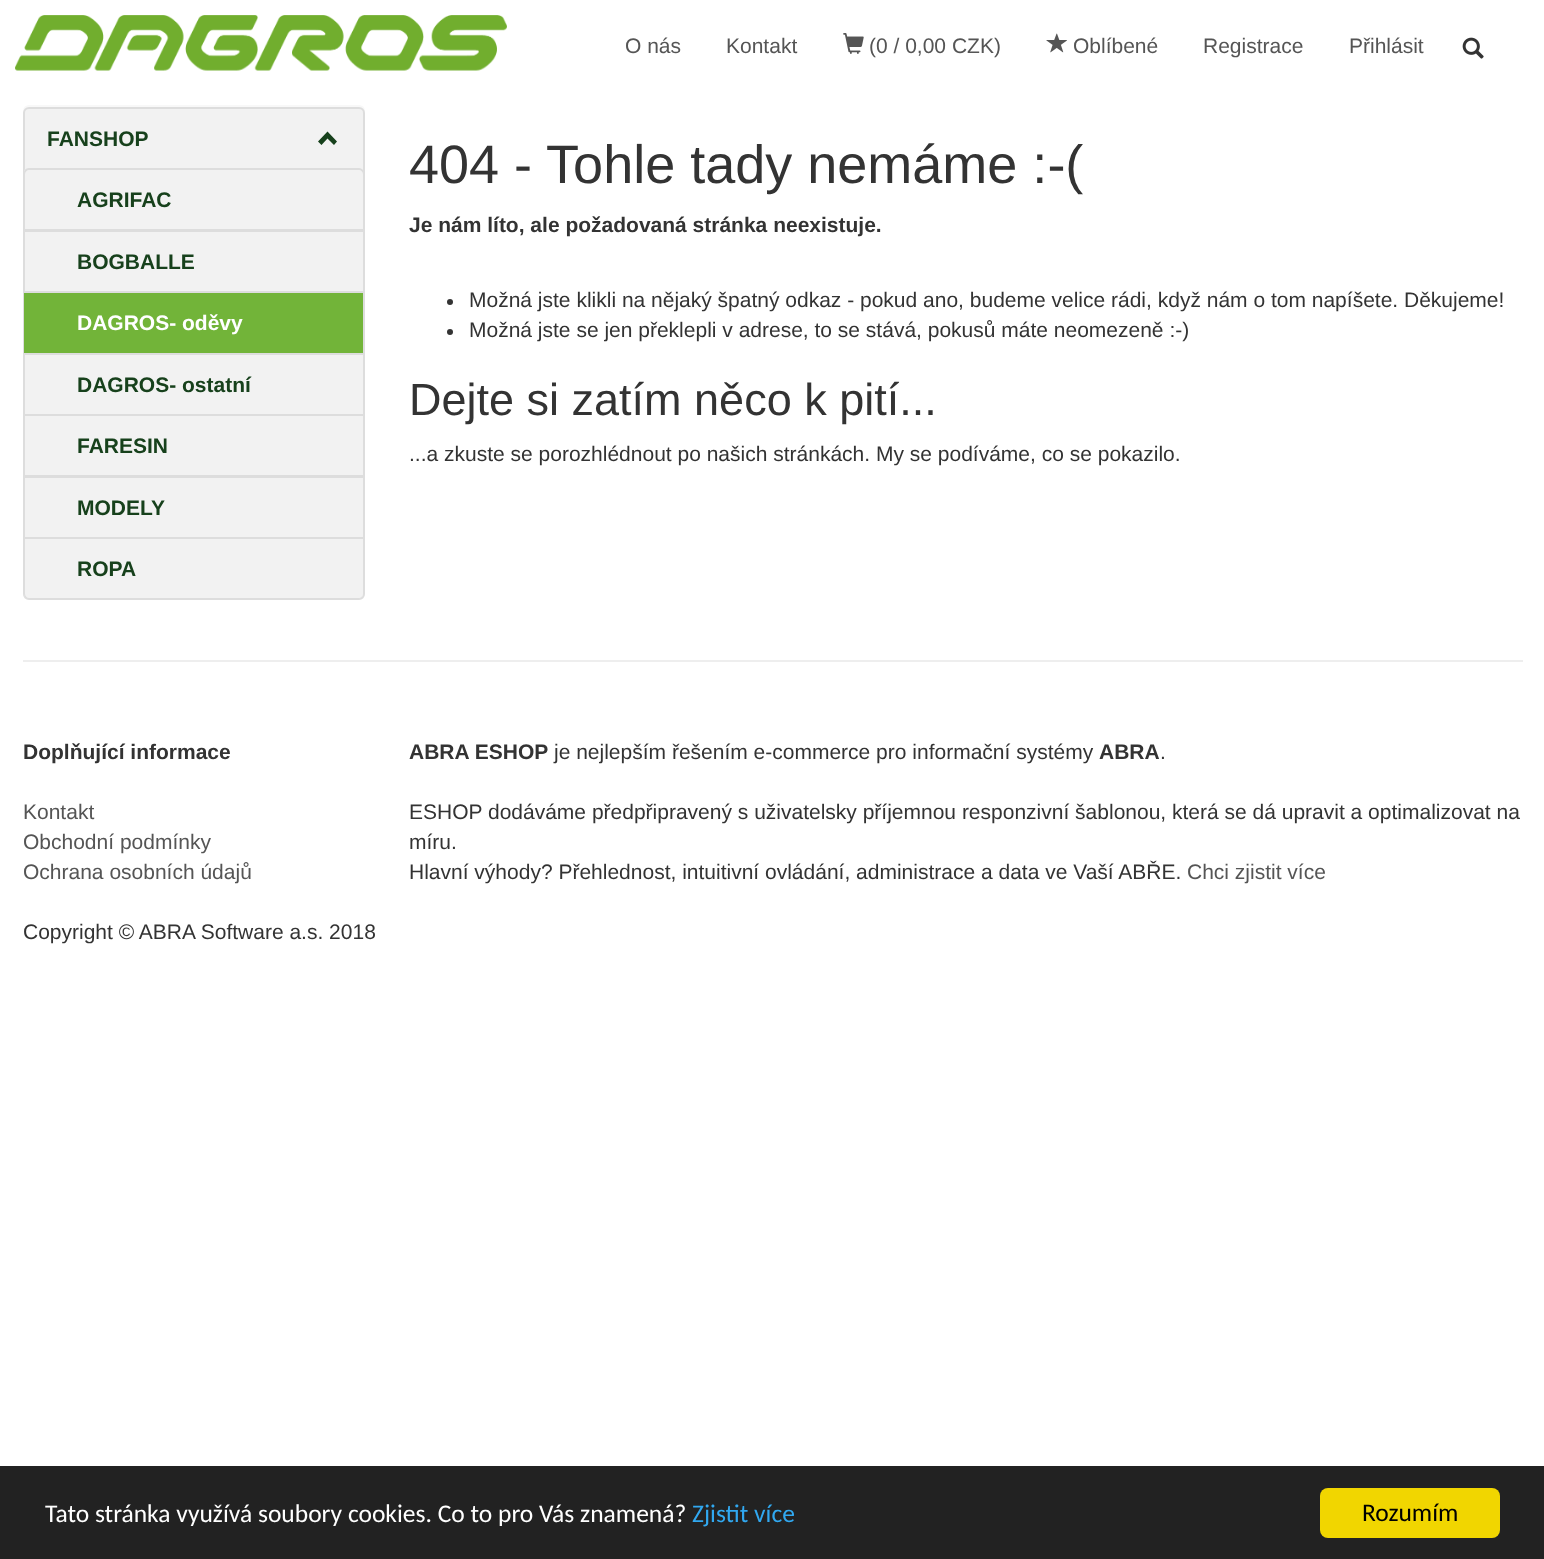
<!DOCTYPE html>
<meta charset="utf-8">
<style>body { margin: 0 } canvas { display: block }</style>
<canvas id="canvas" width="1544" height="1559"></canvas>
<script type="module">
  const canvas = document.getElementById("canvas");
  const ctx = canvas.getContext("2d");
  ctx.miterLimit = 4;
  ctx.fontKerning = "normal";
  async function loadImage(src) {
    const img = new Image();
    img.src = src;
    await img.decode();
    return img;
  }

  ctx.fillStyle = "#ffffff";
  ctx.fillRect(0, 0, 1544, 1559);
  ctx.drawImage(await loadImage("img1.png"), 15, 15, 492, 56);
  ctx.font = "21px Liberation Sans";
  ctx.fillStyle = "#555555";
  ctx.fillText("O nás", 625, 53);
  ctx.fillText("Kontakt", 726, 53);
  ctx.drawImage(await loadImage("img2.png"), 843, 33, 21, 21);
  ctx.fillText("(0 / 0,00 CZK)", 869, 53);
  ctx.drawImage(await loadImage("img3.png"), 1046, 33, 21, 20);
  ctx.fillText("Oblíbené", 1073, 53);
  ctx.fillText("Registrace", 1203, 53);
  ctx.fillText("Přihlásit", 1349, 53);
  ctx.drawImage(await loadImage("img4.png"), 1462, 37, 22, 22);
  ctx.fillStyle = "#f8f8f8";
  ctx.beginPath();
  ctx.roundRect(23, 105, 342, 495, 6);
  ctx.fill();
  ctx.fillStyle = "#f2f2f2";
  ctx.beginPath();
  ctx.roundRect(24, 108, 340, 491, 5);
  ctx.fill();
  ctx.strokeStyle = "#dddddd";
  ctx.lineWidth = 2;
  ctx.stroke();
  ctx.font = "bold 21px Liberation Sans";
  ctx.fillStyle = "#17411c";
  ctx.fillText("FANSHOP", 47, 146);
  ctx.beginPath();
  ctx.moveTo(337, 141.5);
  ctx.lineTo(334, 145);
  ctx.lineTo(327.5, 138.5);
  ctx.lineTo(321.5, 145);
  ctx.lineTo(318, 141.5);
  ctx.lineTo(327.5, 131.5);
  ctx.closePath();
  ctx.fill();
  ctx.save();
  ctx.beginPath();
  ctx.roundRect(24, 108, 339, 491, 5);
  ctx.clip();
  ctx.fillStyle = "#f2f2f2";
  ctx.beginPath();
  ctx.roundRect(23, 168, 342, 63, [6, 6, 0, 0]);
  ctx.fill();
  ctx.restore();
  ctx.fillStyle = "#dddddd";
  ctx.beginPath();
  ctx.moveTo(29, 168);
  ctx.lineTo(359, 168);
  ctx.bezierCurveTo(361, 168, 362, 169, 363, 170);
  ctx.lineTo(363, 174);
  ctx.bezierCurveTo(363, 172, 361, 170, 359, 170);
  ctx.lineTo(29, 170);
  ctx.bezierCurveTo(27, 170, 25, 172, 25, 174);
  ctx.lineTo(25, 229);
  ctx.lineTo(363, 229);
  ctx.lineTo(363, 231);
  ctx.lineTo(24, 231);
  ctx.lineTo(24, 171);
  ctx.bezierCurveTo(25, 169, 27, 168, 29, 168);
  ctx.closePath();
  ctx.fill();
  ctx.fillStyle = "#17411c";
  ctx.fillText("AGRIFAC", 77, 207);
  ctx.fillStyle = "#dddddd";
  ctx.beginPath();
  ctx.moveTo(25, 232);
  ctx.lineTo(25, 291);
  ctx.lineTo(363, 291);
  ctx.lineTo(363, 293);
  ctx.lineTo(24, 293);
  ctx.lineTo(24, 230);
  ctx.lineTo(363, 230);
  ctx.lineTo(363, 232);
  ctx.closePath();
  ctx.fill();
  ctx.fillStyle = "#17411c";
  ctx.fillText("BOGBALLE", 77, 269);
  ctx.fillStyle = "#dddddd";
  ctx.beginPath();
  ctx.moveTo(25, 293);
  ctx.lineTo(25, 352);
  ctx.lineTo(363, 352);
  ctx.lineTo(363, 354);
  ctx.lineTo(24, 354);
  ctx.lineTo(24, 291);
  ctx.lineTo(363, 291);
  ctx.lineTo(363, 293);
  ctx.closePath();
  ctx.fill();
  ctx.fillStyle = "#72b439";
  ctx.fillRect(24, 293, 339, 60);
  ctx.fillStyle = "#ffffff";
  ctx.fillText("DAGROS- oděvy", 77, 330);
  ctx.fillStyle = "#dddddd";
  ctx.beginPath();
  ctx.moveTo(25, 355);
  ctx.lineTo(25, 414);
  ctx.lineTo(363, 414);
  ctx.lineTo(363, 416);
  ctx.lineTo(24, 416);
  ctx.lineTo(24, 353);
  ctx.lineTo(363, 353);
  ctx.lineTo(363, 355);
  ctx.closePath();
  ctx.fill();
  ctx.fillStyle = "#17411c";
  ctx.fillText("DAGROS- ostatní", 77, 392);
  ctx.fillStyle = "#dddddd";
  ctx.beginPath();
  ctx.moveTo(25, 416);
  ctx.lineTo(25, 475);
  ctx.lineTo(363, 475);
  ctx.lineTo(363, 477);
  ctx.lineTo(24, 477);
  ctx.lineTo(24, 414);
  ctx.lineTo(363, 414);
  ctx.lineTo(363, 416);
  ctx.closePath();
  ctx.fill();
  ctx.fillStyle = "#17411c";
  ctx.fillText("FARESIN", 77, 453);
  ctx.fillStyle = "#dddddd";
  ctx.beginPath();
  ctx.moveTo(25, 478);
  ctx.lineTo(25, 537);
  ctx.lineTo(363, 537);
  ctx.lineTo(363, 539);
  ctx.lineTo(24, 539);
  ctx.lineTo(24, 476);
  ctx.lineTo(363, 476);
  ctx.lineTo(363, 478);
  ctx.closePath();
  ctx.fill();
  ctx.fillStyle = "#17411c";
  ctx.fillText("MODELY", 77, 515);
  ctx.save();
  ctx.beginPath();
  ctx.roundRect(24, 108, 339, 491, 5);
  ctx.clip();
  ctx.fillStyle = "#f2f2f2";
  ctx.beginPath();
  ctx.roundRect(23, 537, 342, 63, [0, 0, 6, 6]);
  ctx.fill();
  ctx.restore();
  ctx.fillStyle = "#dddddd";
  ctx.beginPath();
  ctx.moveTo(25, 539);
  ctx.lineTo(363, 539);
  ctx.lineTo(363, 537);
  ctx.lineTo(24, 537);
  ctx.lineTo(24, 594);
  ctx.bezierCurveTo(24, 597, 26, 599, 29, 599);
  ctx.lineTo(358, 599);
  ctx.bezierCurveTo(361, 599, 363, 597, 363, 594);
  ctx.bezierCurveTo(363, 596, 361, 598, 359, 598);
  ctx.lineTo(29, 598);
  ctx.bezierCurveTo(27, 598, 25, 596, 25, 594);
  ctx.closePath();
  ctx.fill();
  ctx.fillStyle = "#17411c";
  ctx.fillText("ROPA", 77, 576);
  ctx.font = "54px Liberation Sans";
  ctx.fillStyle = "#333333";
  ctx.fillText("404 - Tohle tady nemáme :-(", 409, 183);
  ctx.font = "bold 21px Liberation Sans";
  ctx.fillText("Je nám líto, ale požadovaná stránka neexistuje.", 409, 232);
  ctx.beginPath();
  ctx.arc(450, 302, 3, 0, Math.PI * 2);
  ctx.fill();
  ctx.font = "21px Liberation Sans";
  ctx.fillText("Možná jste klikli na nějaký špatný odkaz - pokud ano, budeme velice rádi, když nám o tom napíšete. Děkujeme!", 469, 307);
  ctx.beginPath();
  ctx.arc(450, 332, 3, 0, Math.PI * 2);
  ctx.fill();
  ctx.fillText("Možná jste se jen překlepli v adrese, to se stává, pokusů máte neomezeně :-)", 469, 337);
  ctx.font = "45px Liberation Sans";
  ctx.fillText("Dejte si zatím něco k pití...", 409, 415);
  ctx.font = "21px Liberation Sans";
  ctx.fillText("...a zkuste se porozhlédnout po našich stránkách. My se podíváme, co se pokazilo.", 409, 461);
  ctx.fillStyle = "#eeeeee";
  ctx.fillRect(23, 660, 1500, 2);
  ctx.font = "bold 21px Liberation Sans";
  ctx.fillStyle = "#333333";
  ctx.fillText("Doplňující informace", 23, 759);
  ctx.font = "21px Liberation Sans";
  ctx.fillStyle = "#555555";
  ctx.fillText("Kontakt", 23, 819);
  ctx.fillText("Obchodní podmínky", 23, 849);
  ctx.fillText("Ochrana osobních údajů", 23, 879);
  ctx.font = "bold 21px Liberation Sans";
  ctx.fillStyle = "#333333";
  ctx.fillText("ABRA ESHOP", 409, 759);
  ctx.font = "21px Liberation Sans";
  ctx.fillText("je nejlepším řešením e-commerce pro informační systémy", 554, 759);
  ctx.font = "bold 21px Liberation Sans";
  ctx.fillText("ABRA", 1099, 759);
  ctx.font = "21px Liberation Sans";
  ctx.fillText(".", 1160, 759);
  ctx.fillText("ESHOP dodáváme předpřipravený s uživatelsky příjemnou responzivní šablonou, která se dá upravit a optimalizovat na", 409, 819);
  ctx.fillText("míru.", 409, 849);
  ctx.fillText("Hlavní výhody? Přehlednost, intuitivní ovládání, administrace a data ve Vaší ABŘE.", 409, 879);
  ctx.fillStyle = "#555555";
  ctx.fillText("Chci zjistit více", 1187, 879);
  ctx.fillStyle = "#333333";
  ctx.fillText("Copyright © ABRA Software a.s. 2018", 23, 939);
  ctx.fillStyle = "#222222";
  ctx.fillRect(0, 1466, 1544, 93);
  ctx.font = "25.5px Carlito";
  ctx.fillStyle = "#ffffff";
  ctx.fillText("Tato stránka využívá soubory cookies. Co to pro Vás znamená?", 45, 1522);
  ctx.fillStyle = "#31a8f0";
  ctx.fillText("Zjistit více", 692, 1522);
  ctx.fillStyle = "#f1d600";
  ctx.beginPath();
  ctx.roundRect(1320, 1488, 180, 50, 8);
  ctx.fill();
  ctx.fillStyle = "#000000";
  ctx.fillText("Rozumím", 1362, 1521);
</script>
